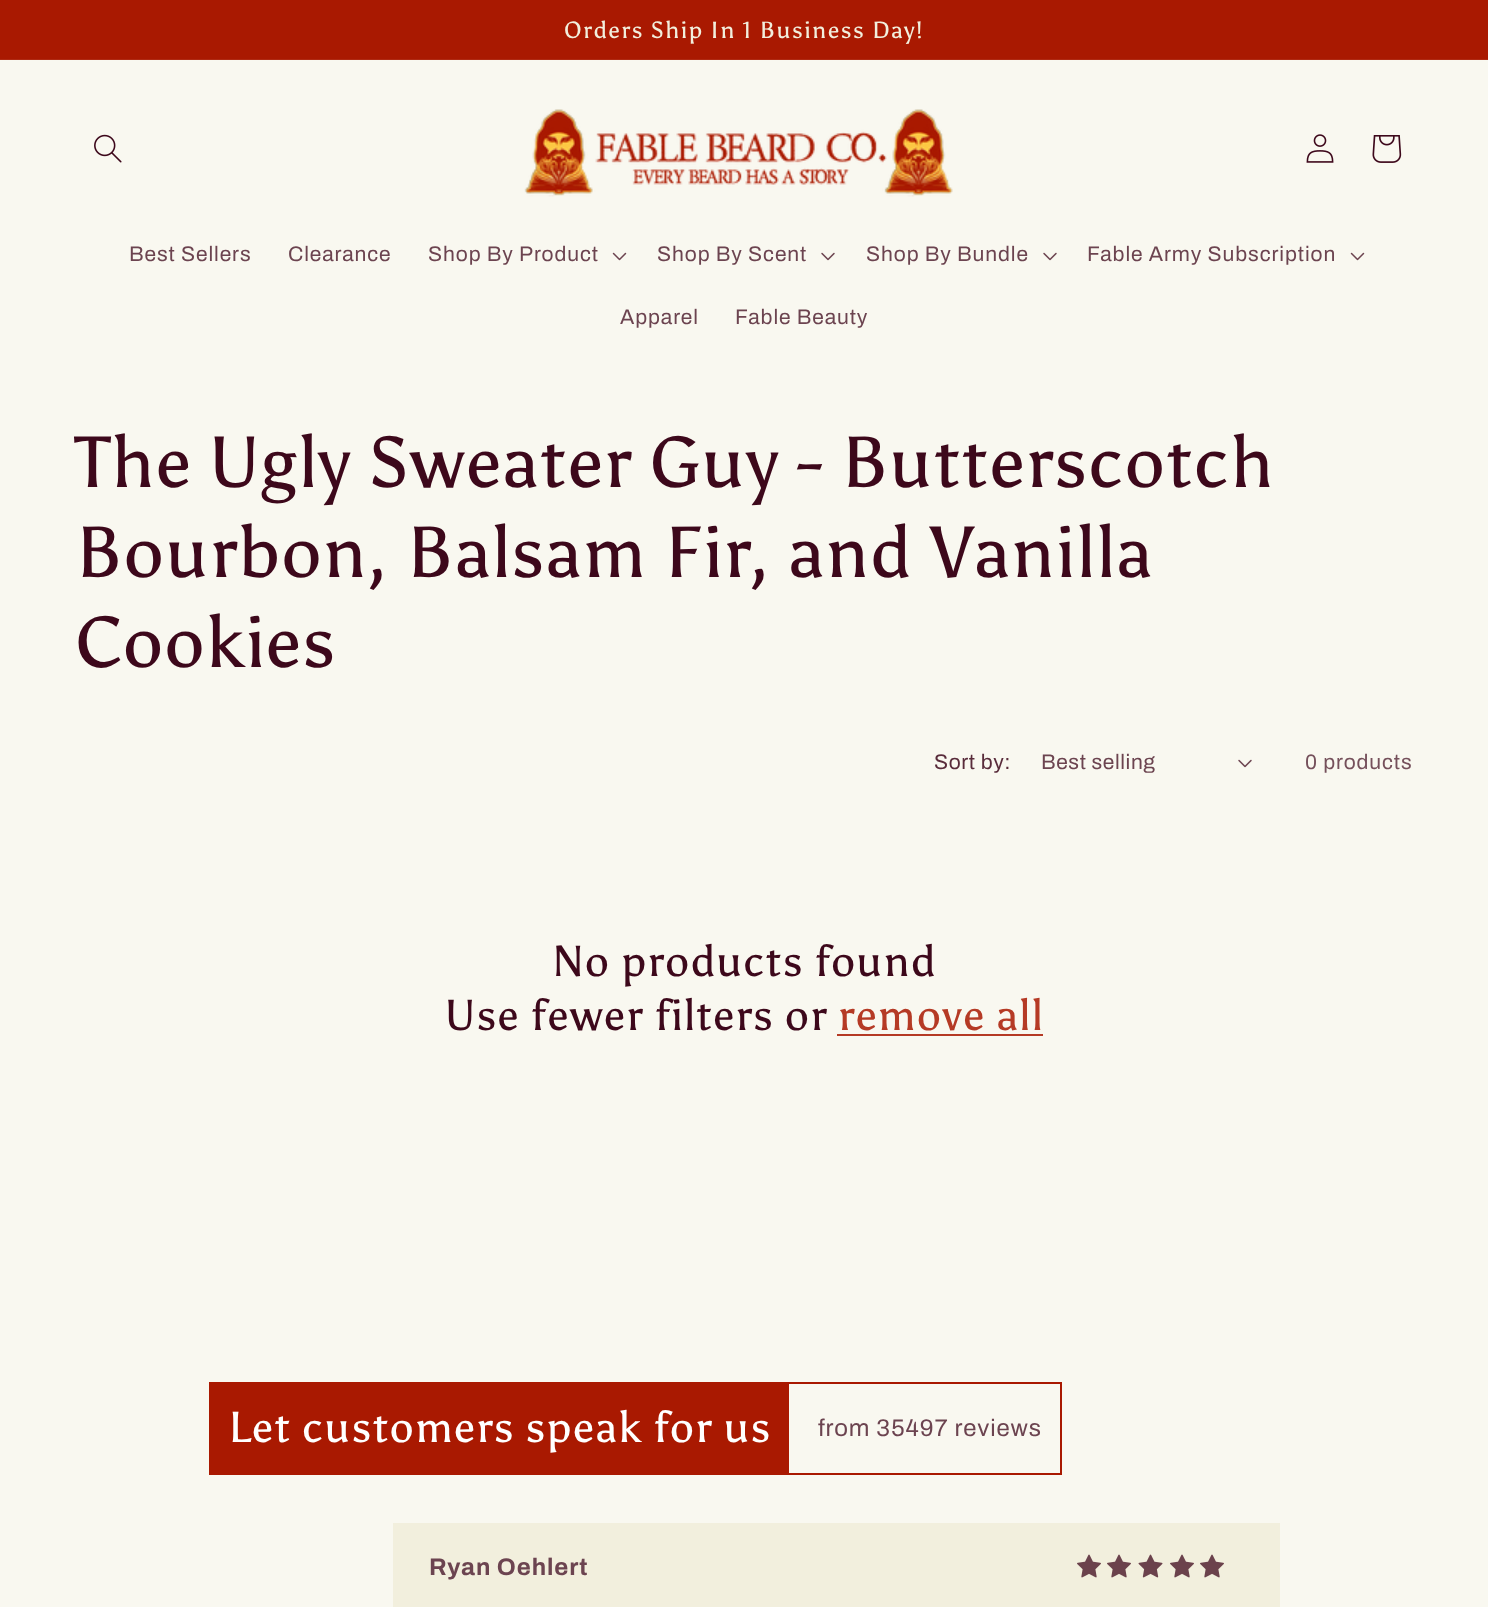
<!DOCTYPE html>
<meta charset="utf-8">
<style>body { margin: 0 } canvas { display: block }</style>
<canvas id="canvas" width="1488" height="1607"></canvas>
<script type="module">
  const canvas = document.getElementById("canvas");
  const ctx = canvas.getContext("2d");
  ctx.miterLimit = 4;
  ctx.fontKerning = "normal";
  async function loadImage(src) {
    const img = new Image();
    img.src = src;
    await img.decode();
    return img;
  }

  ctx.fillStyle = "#f9f8f0";
  ctx.fillRect(0, 0, 1488, 1607);
  ctx.fillStyle = "#a91901";
  ctx.fillRect(0, 0, 1488, 59);
  ctx.fillStyle = "#af2a13";
  ctx.fillRect(0, 59, 1488, 1);
  ctx.letterSpacing = "1.5px";
  ctx.font = "23.4px Asul";
  ctx.fillStyle = "#f2efdd";
  ctx.fillText("Orders Ship In 1 Business Day!", 564, 38);
  ctx.drawImage(await loadImage("img1.png"), 94, 134, 28, 29);
  ctx.drawImage(await loadImage("img2.png"), 524, 109, 429, 88);
  ctx.drawImage(await loadImage("img3.png"), 1306, 134, 28, 29);
  ctx.drawImage(await loadImage("img4.png"), 1372, 135, 30, 28);
  ctx.letterSpacing = "0.9px";
  ctx.font = "21px Archivo";
  ctx.fillStyle = "#6c4450";
  ctx.fillText("Best Sellers", 129, 261);
  ctx.fillText("Clearance", 288, 261);
  ctx.fillText("Shop By Product", 428, 261);
  ctx.drawImage(await loadImage("img5.png"), 612, 252, 15, 9);
  ctx.fillText("Shop By Scent", 657, 261);
  ctx.drawImage(await loadImage("img6.png"), 821, 252, 14, 9);
  ctx.fillText("Shop By Bundle", 866, 261);
  ctx.drawImage(await loadImage("img6.png"), 1043, 252, 14, 9);
  ctx.fillText("Fable Army Subscription", 1087, 261);
  ctx.drawImage(await loadImage("img5.png"), 1350, 252, 15, 9);
  ctx.fillText("Apparel", 620, 324);
  ctx.fillText("Fable Beauty", 735, 324);
  ctx.letterSpacing = "1.1px";
  ctx.font = "72px Asul";
  ctx.fillStyle = "#3d081b";
  ctx.fillText("The Ugly Sweater Guy - Butterscotch", 75, 487);
  ctx.fillText("Bourbon, Balsam Fir, and Vanilla", 75, 577);
  ctx.fillText("Cookies", 75, 667);
  ctx.letterSpacing = "0.6px";
  ctx.font = "21px Archivo";
  ctx.fillStyle = "#592c3b";
  ctx.fillText("Sort by:", 934, 769);
  ctx.fillStyle = "#6c4450";
  ctx.fillText("Best selling", 1041, 769);
  ctx.drawImage(await loadImage("img6.png"), 1238, 759, 14, 9);
  ctx.letterSpacing = "0.9px";
  ctx.fillStyle = "#75505b";
  ctx.fillText("0 products", 1305, 769);
  ctx.letterSpacing = "1.1px";
  ctx.font = "43.25px Asul";
  ctx.fillStyle = "#3d081b";
  ctx.fillText("No products found", 553, 976);
  ctx.fillText("Use fewer filters or", 445, 1030);
  ctx.fillStyle = "#b53a25";
  ctx.fillText("remove all", 838, 1030);
  ctx.fillRect(837, 1034, 206, 2);
  ctx.strokeStyle = "#a91901";
  ctx.lineWidth = 2;
  ctx.strokeRect(210, 1383, 851, 91);
  ctx.fillStyle = "#a91901";
  ctx.fillRect(211, 1384, 578, 89);
  ctx.fillStyle = "#ffffff";
  ctx.fillText("Let customers speak for us", 228, 1442);
  ctx.letterSpacing = "0.9px";
  ctx.font = "24px Archivo";
  ctx.fillStyle = "#6c4450";
  ctx.fillText("from 35497 reviews", 818, 1436);
  ctx.fillStyle = "#f2efdd";
  ctx.fillRect(393, 1523, 887, 84);
  ctx.font = "bold 24px Archivo";
  ctx.fillStyle = "#6c4450";
  ctx.fillText("Ryan Oehlert", 429, 1575);
  ctx.drawImage(await loadImage("img7.png"), 1077, 1554, 24, 24);
  ctx.drawImage(await loadImage("img7.png"), 1107, 1554, 24, 24);
  ctx.drawImage(await loadImage("img8.png"), 1138, 1554, 25, 24);
  ctx.drawImage(await loadImage("img7.png"), 1170, 1554, 24, 24);
  ctx.drawImage(await loadImage("img7.png"), 1200, 1554, 24, 24);
</script>
